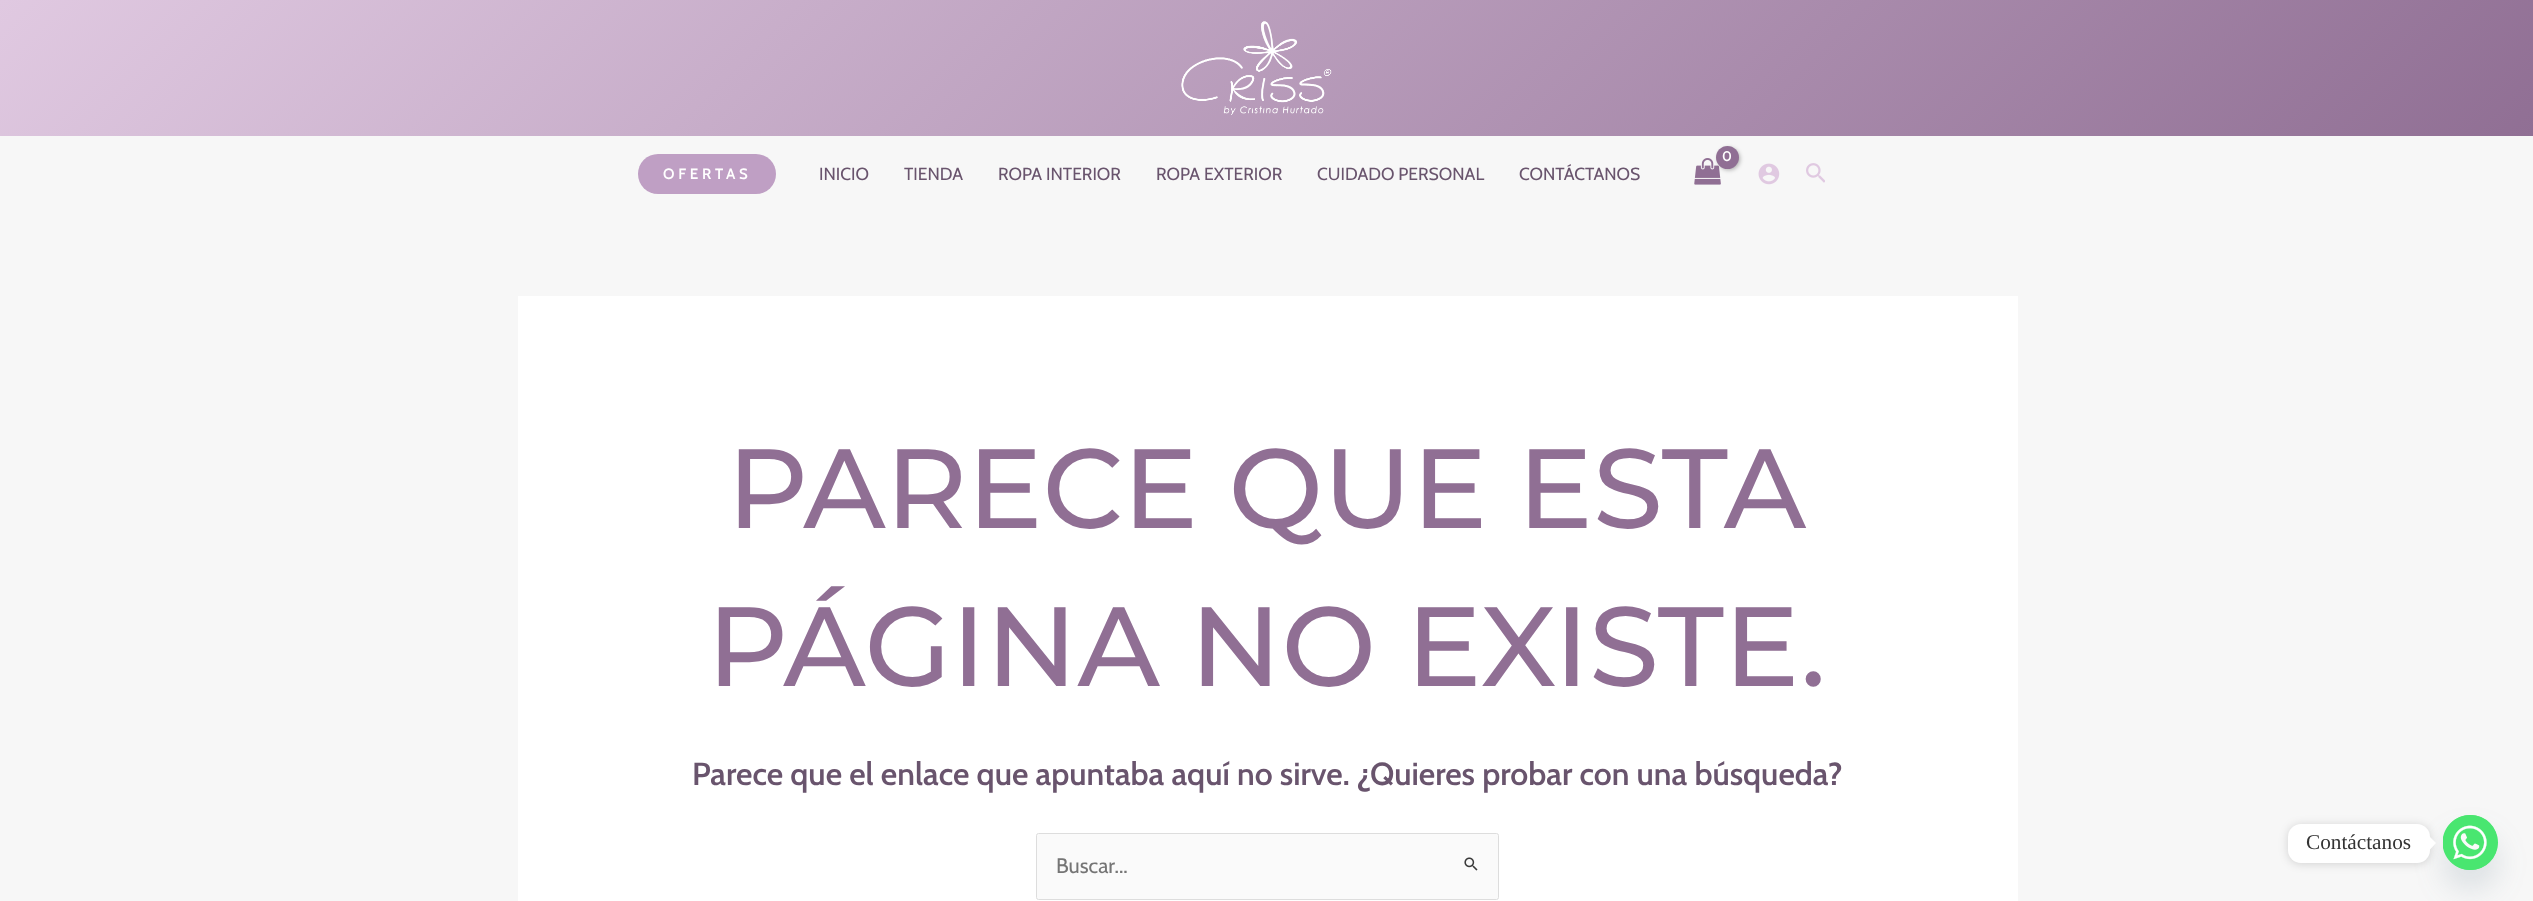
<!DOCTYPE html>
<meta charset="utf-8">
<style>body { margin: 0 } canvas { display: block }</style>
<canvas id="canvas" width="2533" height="901"></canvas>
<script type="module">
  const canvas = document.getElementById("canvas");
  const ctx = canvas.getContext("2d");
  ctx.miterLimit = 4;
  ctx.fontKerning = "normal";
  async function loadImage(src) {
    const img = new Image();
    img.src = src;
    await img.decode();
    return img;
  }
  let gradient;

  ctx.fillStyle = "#f7f7f7";
  ctx.fillRect(0, 0, 2533, 901);
  gradient = ctx.createLinearGradient(599, -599, 1934, 736);
  gradient.addColorStop(0, "#e0c9e1");
  gradient.addColorStop(1, "#906f94");
  ctx.fillStyle = gradient;
  ctx.fillRect(0, 0, 2533, 136);
  ctx.drawImage(await loadImage("img1.png"), 1181, 21, 151, 94);
  ctx.fillStyle = "#bf9fc4";
  ctx.beginPath();
  ctx.roundRect(638, 154, 138, 40, 20);
  ctx.fill();
  ctx.letterSpacing = "3.75px";
  ctx.font = "600 15px Cabin";
  ctx.fillStyle = "#ffffff";
  ctx.fillText("OFERTAS", 663, 179);
  ctx.drawImage(await loadImage("img2.png"), 1694, 158, 27, 27);
  ctx.fillStyle = "rgba(0, 0, 0, 0.3)";
  ctx.filter = "blur(2px)";
  ctx.beginPath();
  ctx.roundRect(1718, 148, 22, 22, 11);
  ctx.fill();
  ctx.filter = "none";
  ctx.fillStyle = "#906f94";
  ctx.beginPath();
  ctx.arc(1727.5, 157.5, 11.5, 0, Math.PI * 2);
  ctx.fill();
  ctx.letterSpacing = "-1px";
  ctx.font = "600 14px Cabin";
  ctx.fillStyle = "#ffffff";
  ctx.fillText("0", 1722, 161);
  ctx.letterSpacing = "0px";
  ctx.font = "17.5px Cabin";
  ctx.fillStyle = "#69546d";
  ctx.fillText("INICIO", 819, 180);
  ctx.fillText("TIENDA", 904, 180);
  ctx.fillText("ROPA INTERIOR", 998, 180);
  ctx.fillText("ROPA EXTERIOR", 1156, 180);
  ctx.fillText("CUIDADO PERSONAL", 1317, 180);
  ctx.fillText("CONTÁCTANOS", 1519, 180);
  ctx.drawImage(await loadImage("img3.png"), 1758, 163, 22, 22);
  ctx.drawImage(await loadImage("img4.png"), 1806, 163, 19, 20);
  ctx.fillStyle = "#ffffff";
  ctx.fillRect(518, 296, 1500, 605);
  ctx.font = "100 112.5px Montserrat";
  ctx.fillStyle = "#906f94";
  ctx.fillText("PARECE QUE ESTA", 727, 528);
  ctx.fillText("PÁGINA NO EXISTE.", 707, 686);
  ctx.font = "600 31.9px Cabin";
  ctx.fillStyle = "#69546d";
  ctx.fillText("Parece que el enlace que apuntaba aquí no sirve. ¿Quieres probar con una búsqueda?", 692, 785);
  ctx.fillStyle = "#fafafa";
  ctx.beginPath();
  ctx.roundRect(1036.5, 833.5, 462, 66, 2);
  ctx.fill();
  ctx.strokeStyle = "#dddddd";
  ctx.stroke();
  ctx.font = "21.25px Cabin";
  ctx.fillStyle = "#757575";
  ctx.fillText("Buscar...", 1056, 873);
  ctx.drawImage(await loadImage("img5.png"), 1464, 857, 14, 14);
  ctx.fillStyle = "rgba(73, 104, 126, 0.16)";
  ctx.filter = "blur(15px)";
  ctx.beginPath();
  ctx.roundRect(2443, 835, 55, 55, 27.5);
  ctx.fill();
  ctx.filter = "none";
  ctx.fillStyle = "#49e670";
  ctx.beginPath();
  ctx.arc(2470.5, 842.5, 27.5, 0, Math.PI * 2);
  ctx.fill();
  ctx.drawImage(await loadImage("img6.png"), 2443, 815, 55, 55);
  ctx.fillStyle = "rgba(0, 0, 0, 0.15)";
  ctx.filter = "blur(5px)";
  ctx.beginPath();
  ctx.roundRect(2288, 825, 142, 39, 13);
  ctx.fill();
  ctx.filter = "none";
  ctx.fillStyle = "#ffffff";
  ctx.beginPath();
  ctx.roundRect(2288, 824, 142, 39, 13);
  ctx.fill();
  ctx.font = "21.25px Liberation Serif";
  ctx.fillStyle = "#333333";
  ctx.fillText("Contáctanos", 2306, 849);
  ctx.fillStyle = "#ffffff";
  ctx.beginPath();
  ctx.moveTo(2430, 849.5);
  ctx.lineTo(2430, 837);
  ctx.lineTo(2436, 843);
  ctx.closePath();
  ctx.fill();
</script>
